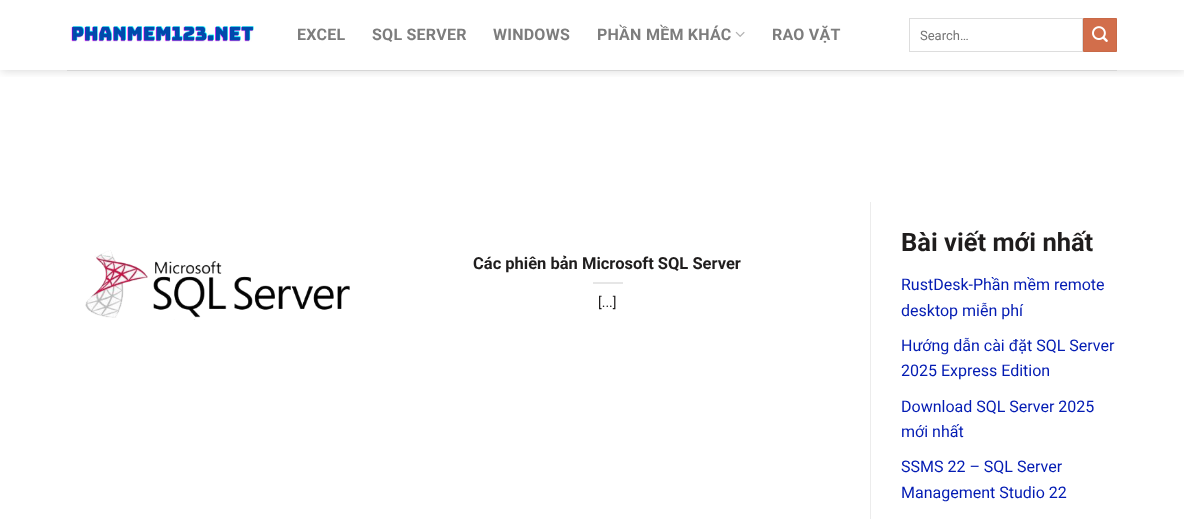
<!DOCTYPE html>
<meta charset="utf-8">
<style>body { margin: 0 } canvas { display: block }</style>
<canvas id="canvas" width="1184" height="519"></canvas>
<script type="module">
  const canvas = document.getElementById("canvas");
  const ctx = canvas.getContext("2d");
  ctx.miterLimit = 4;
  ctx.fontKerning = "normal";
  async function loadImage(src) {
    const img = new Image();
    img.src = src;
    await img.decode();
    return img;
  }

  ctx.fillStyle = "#ffffff";
  ctx.fillRect(0, 0, 1184, 519);
  ctx.save();
  ctx.beginPath();
  ctx.rect(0, 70, 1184, 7);
  ctx.clip();
  ctx.fillStyle = "rgba(0, 0, 0, 0.15)";
  ctx.filter = "blur(5px)";
  ctx.beginPath();
  ctx.rect(1, 1, 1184, 70);
  ctx.fill();
  ctx.filter = "none";
  ctx.restore();
  ctx.drawImage(await loadImage("img1.png"), 70, 26, 184, 16);
  ctx.letterSpacing = "0.25px";
  ctx.font = "bold 16px Roboto";
  ctx.fillStyle = "#7d7d7d";
  ctx.fillText("EXCEL", 297, 40);
  ctx.fillText("SQL SERVER", 372, 40);
  ctx.fillText("WINDOWS", 493, 40);
  ctx.fillText("PHẦN MỀM KHÁC", 597, 40);
  ctx.drawImage(await loadImage("img2.png"), 735, 31, 10, 6);
  ctx.fillText("RAO VẶT", 772, 40);
  ctx.strokeStyle = "#dddddd";
  ctx.strokeRect(909.5, 18.5, 173, 33);
  ctx.letterSpacing = "0px";
  ctx.font = "13px Roboto";
  ctx.fillStyle = "#757575";
  ctx.fillText("Search…", 920, 40);
  ctx.fillStyle = "#d26e4b";
  ctx.beginPath();
  ctx.rect(1083.5, 18.5, 33, 33);
  ctx.fill();
  ctx.strokeStyle = "#c86947";
  ctx.stroke();
  ctx.drawImage(await loadImage("img3.png"), 1092, 26, 16, 16);
  ctx.fillStyle = "#d6d6d6";
  ctx.fillRect(67, 70, 1050, 1);
  ctx.drawImage(await loadImage("img4.png"), 85, 250, 265, 70);
  ctx.font = "bold 16.5px Roboto";
  ctx.fillStyle = "#1f1d1d";
  ctx.fillText("Các phiên bản Microsoft SQL Server", 473, 269);
  ctx.fillStyle = "#e6e6e6";
  ctx.fillRect(593, 282, 30, 2);
  ctx.font = "14px Roboto";
  ctx.fillStyle = "#1f1d1d";
  ctx.fillText("[...]", 598, 307);
  ctx.fillStyle = "#ececec";
  ctx.fillRect(870, 202, 1, 317);
  ctx.font = "bold 25.5px Roboto";
  ctx.fillStyle = "#1f1d1d";
  ctx.fillText("Bài viết mới nhất", 901, 251);
  ctx.font = "16px Roboto";
  ctx.fillStyle = "#031bb3";
  ctx.fillText("RustDesk-Phần mềm remote", 901, 290);
  ctx.fillText("desktop miễn phí", 901, 316);
  ctx.fillText("Hướng dẫn cài đặt SQL Server", 901, 351);
  ctx.fillText("2025 Express Edition", 901, 376);
  ctx.fillText("Download SQL Server 2025", 901, 412);
  ctx.fillText("mới nhất", 901, 437);
  ctx.fillText("SSMS 22 – SQL Server", 901, 472);
  ctx.fillText("Management Studio 22", 901, 498);
</script>
